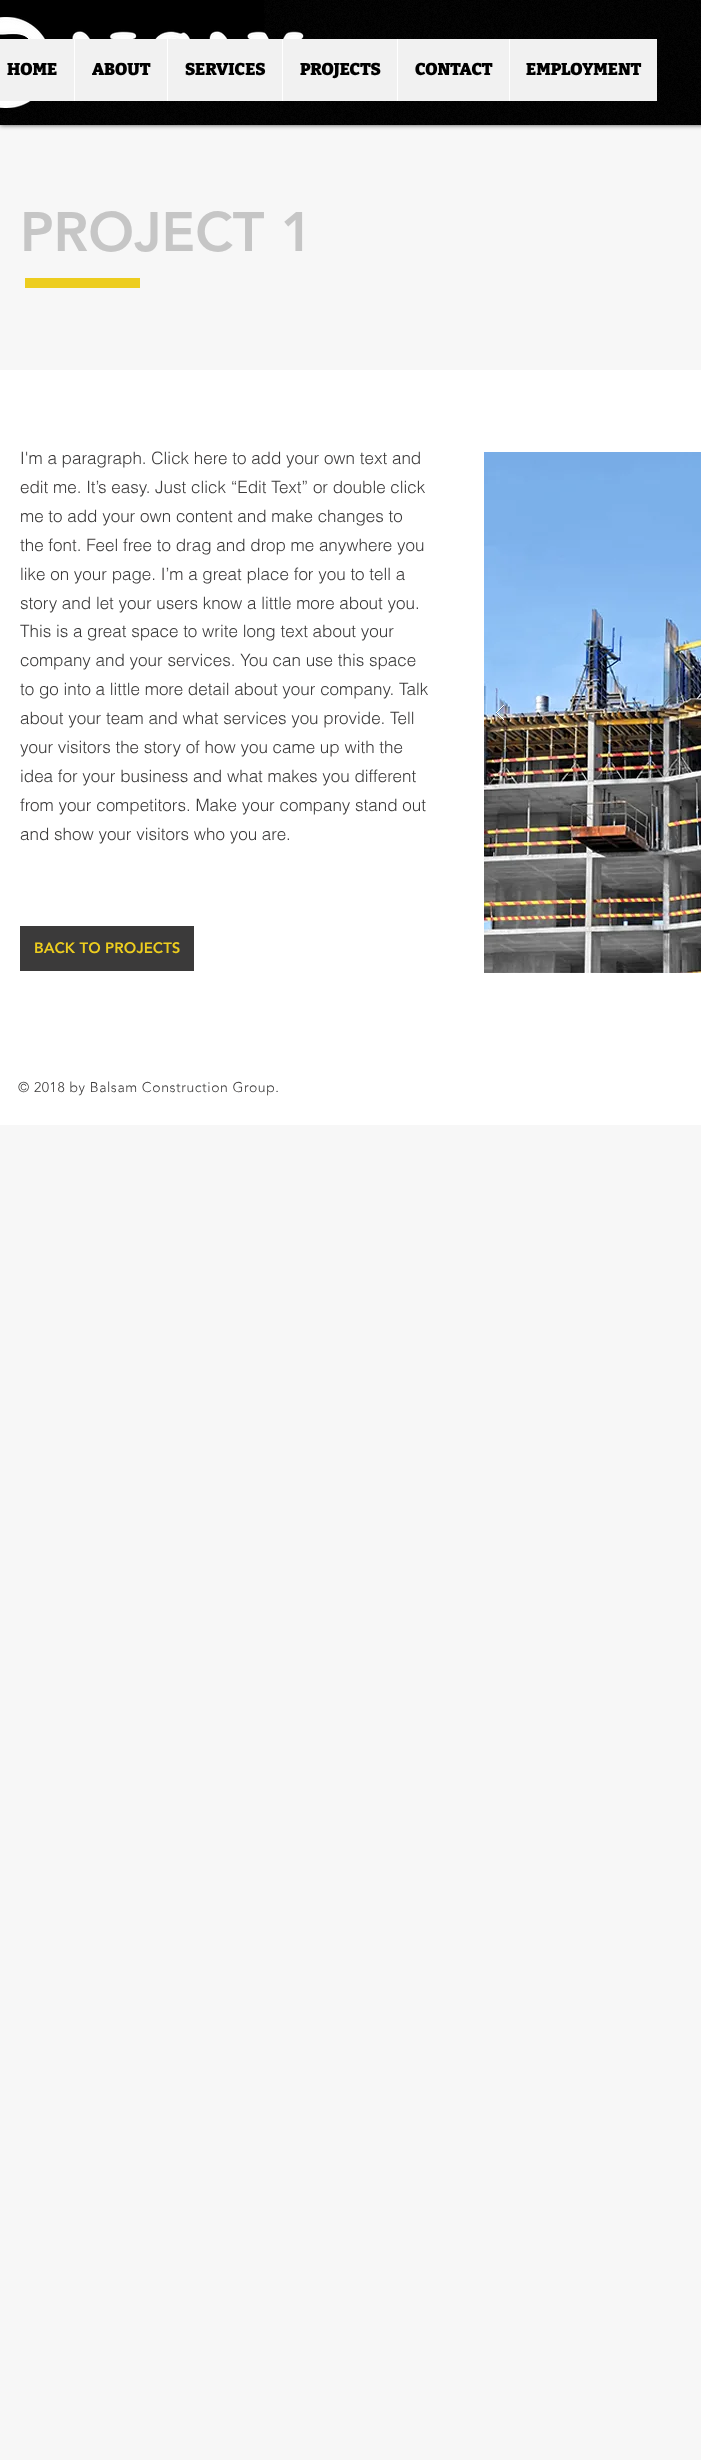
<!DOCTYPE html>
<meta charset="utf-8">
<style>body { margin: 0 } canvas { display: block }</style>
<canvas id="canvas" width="701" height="2460"></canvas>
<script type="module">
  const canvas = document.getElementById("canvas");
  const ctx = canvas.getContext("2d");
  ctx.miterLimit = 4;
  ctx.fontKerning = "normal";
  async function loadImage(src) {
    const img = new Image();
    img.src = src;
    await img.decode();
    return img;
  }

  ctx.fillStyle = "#f7f7f7";
  ctx.fillRect(0, 0, 701, 2460);
  ctx.fillStyle = "rgba(0, 0, 0, 0.7)";
  ctx.filter = "blur(2.5px)";
  ctx.beginPath();
  ctx.rect(0, 0, 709, 125);
  ctx.fill();
  ctx.filter = "none";
  ctx.fillStyle = "#000000";
  ctx.fillRect(0, 0, 701, 125);
  ctx.drawImage(await loadImage("img1.png"), 0, 0, 701, 125);
  ctx.fillRect(0, 0, 264, 39);
  ctx.drawImage(await loadImage("img2.png"), 0, 17, 304, 91);
  ctx.fillStyle = "#f1f1f1";
  ctx.fillRect(0, 39, 657, 62);
  ctx.font = "900 17px Bitter";
  ctx.fillStyle = "#000000";
  ctx.fillText("HOME", 7, 75);
  ctx.fillStyle = "#ffffff";
  ctx.fillRect(74, 39, 1, 62);
  ctx.fillStyle = "#000000";
  ctx.fillText("ABOUT", 92, 75);
  ctx.fillStyle = "#ffffff";
  ctx.fillRect(167, 39, 1, 62);
  ctx.fillStyle = "#000000";
  ctx.fillText("SERVICES", 185, 75);
  ctx.fillStyle = "#ffffff";
  ctx.fillRect(282, 39, 1, 62);
  ctx.fillStyle = "#000000";
  ctx.fillText("PROJECTS", 300, 75);
  ctx.fillStyle = "#ffffff";
  ctx.fillRect(397, 39, 1, 62);
  ctx.fillStyle = "#000000";
  ctx.fillText("CONTACT", 415, 75);
  ctx.fillStyle = "#ffffff";
  ctx.fillRect(509, 39, 1, 62);
  ctx.fillStyle = "#000000";
  ctx.fillText("EMPLOYMENT", 526, 75);
  ctx.font = "900 55px 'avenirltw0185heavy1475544'";
  ctx.fillStyle = "#c6c6c6";
  ctx.fillText("PROJECT 1", 20, 251);
  ctx.fillStyle = "#edcd1f";
  ctx.fillRect(25, 278, 115, 10);
  ctx.fillStyle = "#ffffff";
  ctx.fillRect(0, 370, 701, 755);
  ctx.font = "300 17px helvetica";
  ctx.fillStyle = "#3b3a3a";
  ctx.fillText("I'm a paragraph. Click here to add your own text and", 20, 464);
  ctx.fillText("edit me. It’s easy. Just click “Edit Text” or double click", 20, 493);
  ctx.fillText("me to add your own content and make changes to", 20, 522);
  ctx.fillText("the font. Feel free to drag and drop me anywhere you", 20, 551);
  ctx.fillText("like on your page. I’m a great place for you to tell a", 20, 580);
  ctx.fillText("story and let your users know a little more about you.", 20, 609);
  ctx.fillText("This is a great space to write long text about your", 20, 637);
  ctx.fillText("company and your services. You can use this space", 20, 666);
  ctx.fillText("to go into a little more detail about your company. Talk", 20, 695);
  ctx.fillText("about your team and what services you provide. Tell", 20, 724);
  ctx.fillText("your visitors the story of how you came up with the", 20, 753);
  ctx.fillText("idea for your business and what makes you different", 20, 782);
  ctx.fillText("from your competitors. Make your company stand out", 20, 811);
  ctx.fillText("and show your visitors who you are.", 20, 840);
  ctx.drawImage(await loadImage("img3.png"), 484, 452, 217, 521);
  ctx.drawImage(await loadImage("img4.png"), 496, 705, 8, 16);
  ctx.fillRect(20, 926, 174, 45);
  ctx.font = "900 15px 'avenirltw0185heavy1475544'";
  ctx.fillStyle = "#edcd1f";
  ctx.fillText("BACK TO PROJECTS", 34, 953);
  ctx.letterSpacing = "0.55px";
  ctx.font = "300 14px 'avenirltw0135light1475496'";
  ctx.fillStyle = "#3b3a3a";
  ctx.fillText("© 2018 by Balsam Construction Group.", 18, 1092);
</script>
